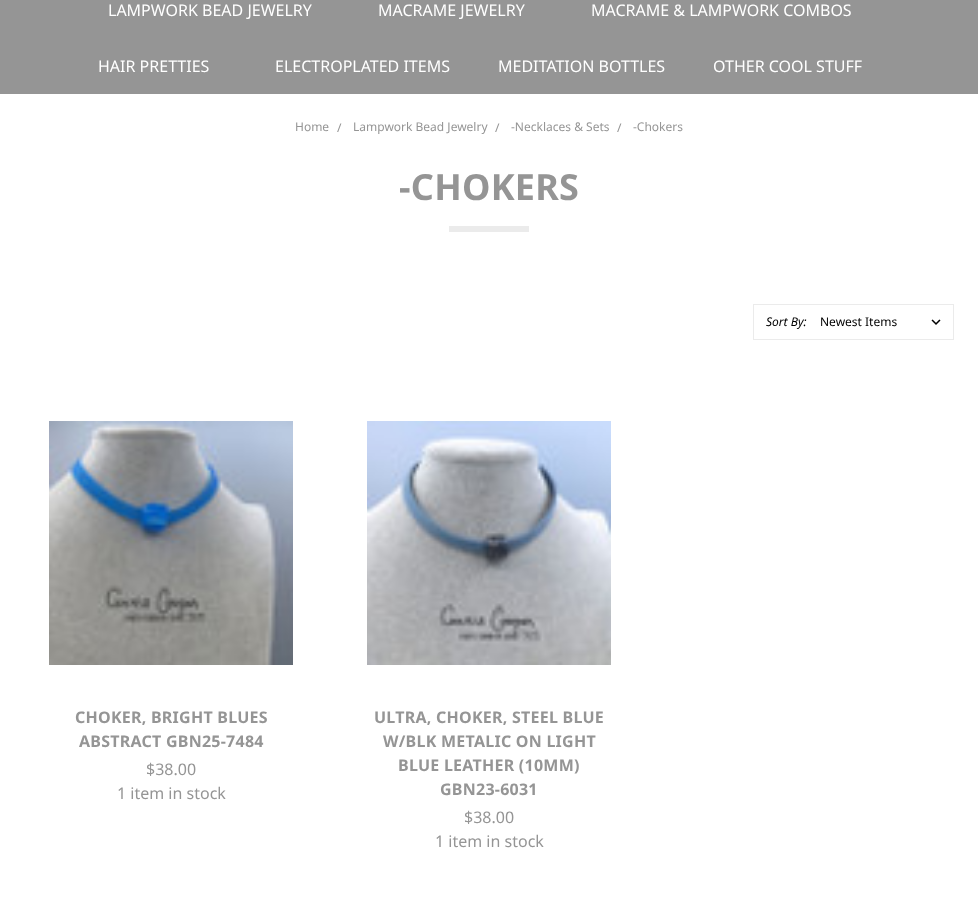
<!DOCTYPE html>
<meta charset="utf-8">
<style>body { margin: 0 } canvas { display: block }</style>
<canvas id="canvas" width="978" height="909"></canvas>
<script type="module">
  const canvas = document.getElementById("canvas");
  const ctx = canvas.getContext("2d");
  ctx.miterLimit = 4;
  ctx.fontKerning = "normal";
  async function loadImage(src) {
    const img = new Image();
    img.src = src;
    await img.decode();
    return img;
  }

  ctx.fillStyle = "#ffffff";
  ctx.fillRect(0, 0, 978, 909);
  ctx.fillStyle = "#959595";
  ctx.fillRect(0, 0, 978, 94);
  ctx.font = "16px Noto Sans";
  ctx.fillStyle = "#ffffff";
  ctx.fillText("LAMPWORK BEAD JEWELRY", 108, 16);
  ctx.fillText("MACRAME JEWELRY", 378, 16);
  ctx.fillText("MACRAME & LAMPWORK COMBOS", 591, 16);
  ctx.fillText("HAIR PRETTIES", 98, 72);
  ctx.fillText("ELECTROPLATED ITEMS", 275, 72);
  ctx.fillText("MEDITATION BOTTLES", 498, 72);
  ctx.fillText("OTHER COOL STUFF", 713, 72);
  ctx.font = "12px Noto Sans";
  ctx.fillStyle = "#959595";
  ctx.fillText("Home", 295, 131);
  ctx.fillText("/", 337, 132);
  ctx.fillText("Lampwork Bead Jewelry", 353, 131);
  ctx.fillText("/", 495, 132);
  ctx.fillText("-Necklaces & Sets", 511, 131);
  ctx.fillText("/", 617, 132);
  ctx.fillText("-Chokers", 633, 131);
  ctx.letterSpacing = "0.25px";
  ctx.font = "bold 36px Noto Sans";
  ctx.fillText("-CHOKERS", 399, 200);
  ctx.fillStyle = "#ebebeb";
  ctx.fillRect(449, 226, 80, 6);
  ctx.strokeStyle = "#ebebeb";
  ctx.strokeRect(753.5, 304.5, 200, 35);
  ctx.letterSpacing = "0px";
  ctx.font = "italic 12px Noto Sans";
  ctx.fillStyle = "#000000";
  ctx.fillText("Sort By:", 766, 326);
  ctx.drawImage(await loadImage("img1.png"), 931, 319, 10, 6);
  ctx.font = "12px Noto Sans";
  ctx.fillText("Newest Items", 820, 326);
  ctx.drawImage(await loadImage("img2.png"), 49, 421, 244, 244);
  ctx.letterSpacing = "0.25px";
  ctx.font = "bold 16px Noto Sans";
  ctx.fillStyle = "#959595";
  ctx.fillText("CHOKER, BRIGHT BLUES", 75, 723);
  ctx.fillText("ABSTRACT GBN25-7484", 79, 747);
  ctx.letterSpacing = "0px";
  ctx.font = "16px Noto Sans";
  ctx.fillText("$38.00", 146, 775);
  ctx.fillText("1 item in stock", 117, 799);
  ctx.drawImage(await loadImage("img3.png"), 367, 421, 244, 244);
  ctx.letterSpacing = "0.25px";
  ctx.font = "bold 16px Noto Sans";
  ctx.fillText("ULTRA, CHOKER, STEEL BLUE", 374, 723);
  ctx.fillText("W/BLK METALIC ON LIGHT", 383, 747);
  ctx.fillText("BLUE LEATHER (10MM)", 398, 771);
  ctx.fillText("GBN23-6031", 440, 795);
  ctx.letterSpacing = "0px";
  ctx.font = "16px Noto Sans";
  ctx.fillText("$38.00", 464, 823);
  ctx.fillText("1 item in stock", 435, 847);
</script>
